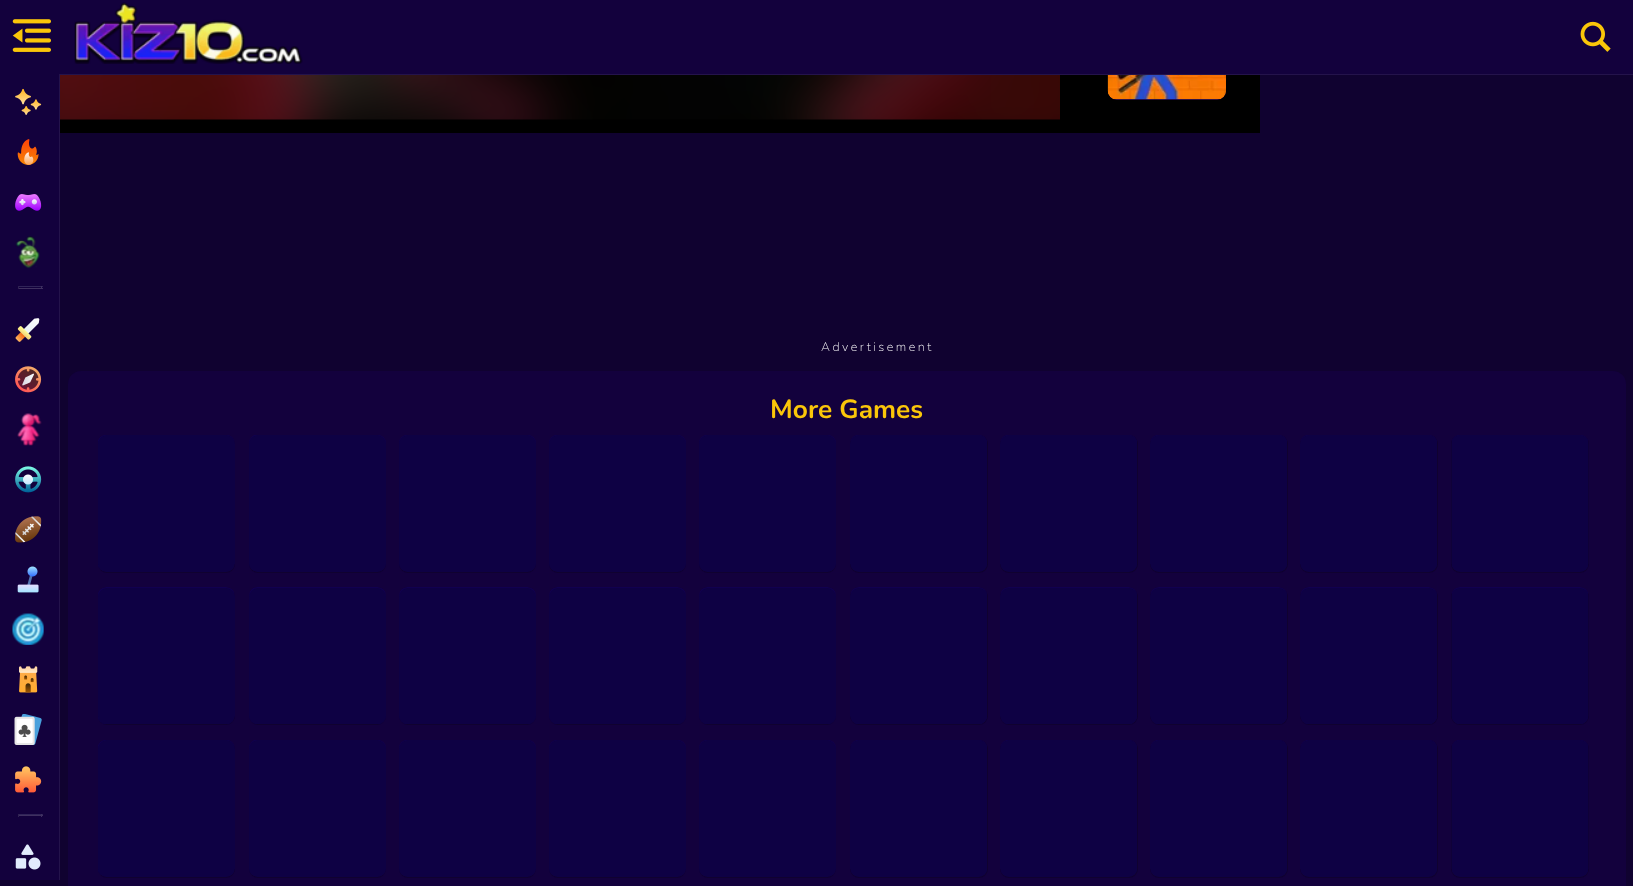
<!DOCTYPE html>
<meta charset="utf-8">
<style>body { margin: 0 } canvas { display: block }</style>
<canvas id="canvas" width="1633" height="886"></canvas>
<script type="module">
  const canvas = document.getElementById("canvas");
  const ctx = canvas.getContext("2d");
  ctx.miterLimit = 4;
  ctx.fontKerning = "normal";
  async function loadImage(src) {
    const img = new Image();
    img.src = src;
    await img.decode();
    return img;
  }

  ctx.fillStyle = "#100230";
  ctx.fillRect(0, 0, 1633, 886);
  ctx.fillStyle = "#000000";
  ctx.fillRect(60, 75, 1200, 58);
  ctx.drawImage(await loadImage("img1.png"), 60, 75, 1000, 45);
  ctx.fillStyle = "#17064b";
  ctx.beginPath();
  ctx.roundRect(1108, -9, 118, 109, 9);
  ctx.fill();
  ctx.drawImage(await loadImage("img2.png"), 1107, 75, 119, 25);
  ctx.fillStyle = "#13013d";
  ctx.fillRect(0, 0, 1633, 74);
  ctx.fillStyle = "#24134b";
  ctx.fillRect(60, 74, 1573, 1);
  ctx.drawImage(await loadImage("img3.png"), 12, 19, 39, 33);
  ctx.drawImage(await loadImage("img4.png"), 74, 2, 229, 62);
  ctx.drawImage(await loadImage("img5.png"), 1580, 21, 31, 31);
  ctx.fillStyle = "#13013d";
  ctx.fillRect(0, 74, 59, 806);
  ctx.fillStyle = "#24134b";
  ctx.fillRect(59, 74, 1, 806);
  ctx.drawImage(await loadImage("img6.png"), 15, 88, 27, 27);
  ctx.drawImage(await loadImage("img7.png"), 17, 139, 22, 26);
  ctx.drawImage(await loadImage("img8.png"), 15, 194, 27, 17);
  ctx.drawImage(await loadImage("img9.png"), 15, 236, 25, 33);
  ctx.fillStyle = "#302458";
  ctx.fillRect(18, 286, 25, 1);
  ctx.fillStyle = "#3f3060";
  ctx.fillRect(41, 286, 1, 3);
  ctx.fillRect(18, 288, 25, 1);
  ctx.fillStyle = "#2f2151";
  ctx.fillRect(18, 286, 1, 3);
  ctx.drawImage(await loadImage("img10.png"), 15, 318, 25, 24);
  ctx.drawImage(await loadImage("img11.png"), 15, 366, 27, 27);
  ctx.drawImage(await loadImage("img12.png"), 17, 413, 25, 33);
  ctx.drawImage(await loadImage("img13.png"), 15, 466, 27, 27);
  ctx.drawImage(await loadImage("img14.png"), 15, 516, 27, 27);
  ctx.drawImage(await loadImage("img15.png"), 17, 566, 22, 27);
  ctx.drawImage(await loadImage("img16.png"), 12, 613, 32, 32);
  ctx.drawImage(await loadImage("img17.png"), 19, 666, 19, 27);
  ctx.drawImage(await loadImage("img18.png"), 14, 714, 28, 31);
  ctx.drawImage(await loadImage("img19.png"), 15, 766, 27, 27);
  ctx.fillStyle = "#302458";
  ctx.fillRect(18, 814, 25, 1);
  ctx.fillStyle = "#3f3060";
  ctx.fillRect(41, 814, 1, 3);
  ctx.fillRect(18, 815, 25, 1);
  ctx.fillStyle = "#2f2151";
  ctx.fillRect(18, 814, 1, 3);
  ctx.drawImage(await loadImage("img20.png"), 15, 844, 26, 26);
  ctx.letterSpacing = "2.5px";
  ctx.font = "200 12.5px Nunito";
  ctx.fillStyle = "#ffffff";
  ctx.fillText("Advertisement", 821, 351);
  ctx.fillStyle = "#13013d";
  ctx.beginPath();
  ctx.roundRect(68, 371, 1558, 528, 13);
  ctx.fill();
  ctx.letterSpacing = "0px";
  ctx.font = "bold 26.25px Nunito";
  ctx.fillStyle = "#fac609";
  ctx.fillText("More Games", 770, 418);
  ctx.fillStyle = "#100230";
  ctx.beginPath();
  ctx.roundRect(98, 435, 137, 138, 9);
  ctx.fill();
  ctx.drawImage(await loadImage("img21.png"), 98, 435, 137, 137);
  ctx.beginPath();
  ctx.roundRect(249, 435, 137, 138, 9);
  ctx.fill();
  ctx.drawImage(await loadImage("img22.png"), 249, 435, 137, 137);
  ctx.beginPath();
  ctx.roundRect(399, 435, 137, 138, 9);
  ctx.fill();
  ctx.drawImage(await loadImage("img23.png"), 399, 435, 137, 137);
  ctx.beginPath();
  ctx.roundRect(549, 435, 137, 138, 9);
  ctx.fill();
  ctx.drawImage(await loadImage("img23.png"), 549, 435, 137, 137);
  ctx.beginPath();
  ctx.roundRect(699, 435, 137, 138, 9);
  ctx.fill();
  ctx.drawImage(await loadImage("img23.png"), 699, 435, 137, 137);
  ctx.beginPath();
  ctx.roundRect(850, 435, 138, 138, 9);
  ctx.fill();
  ctx.drawImage(await loadImage("img24.png"), 850, 435, 137, 137);
  ctx.beginPath();
  ctx.roundRect(1000, 435, 138, 138, 9);
  ctx.fill();
  ctx.drawImage(await loadImage("img24.png"), 1000, 435, 137, 137);
  ctx.beginPath();
  ctx.roundRect(1150, 435, 138, 138, 9);
  ctx.fill();
  ctx.drawImage(await loadImage("img24.png"), 1150, 435, 137, 137);
  ctx.beginPath();
  ctx.roundRect(1300, 435, 138, 138, 9);
  ctx.fill();
  ctx.drawImage(await loadImage("img24.png"), 1300, 435, 137, 137);
  ctx.beginPath();
  ctx.roundRect(1451, 435, 138, 138, 9);
  ctx.fill();
  ctx.drawImage(await loadImage("img25.png"), 1451, 435, 138, 137);
  ctx.beginPath();
  ctx.roundRect(98, 588, 137, 137, 9);
  ctx.fill();
  ctx.drawImage(await loadImage("img26.png"), 98, 587, 137, 137);
  ctx.beginPath();
  ctx.roundRect(249, 588, 137, 137, 9);
  ctx.fill();
  ctx.drawImage(await loadImage("img27.png"), 249, 587, 137, 137);
  ctx.beginPath();
  ctx.roundRect(399, 588, 137, 137, 9);
  ctx.fill();
  ctx.drawImage(await loadImage("img28.png"), 399, 587, 137, 137);
  ctx.beginPath();
  ctx.roundRect(549, 588, 137, 137, 9);
  ctx.fill();
  ctx.drawImage(await loadImage("img29.png"), 549, 587, 137, 137);
  ctx.beginPath();
  ctx.roundRect(699, 588, 137, 137, 9);
  ctx.fill();
  ctx.drawImage(await loadImage("img29.png"), 699, 587, 137, 137);
  ctx.beginPath();
  ctx.roundRect(850, 588, 138, 137, 9);
  ctx.fill();
  ctx.drawImage(await loadImage("img30.png"), 850, 587, 137, 137);
  ctx.beginPath();
  ctx.roundRect(1000, 588, 138, 137, 9);
  ctx.fill();
  ctx.drawImage(await loadImage("img30.png"), 1000, 587, 137, 137);
  ctx.beginPath();
  ctx.roundRect(1150, 588, 138, 137, 9);
  ctx.fill();
  ctx.drawImage(await loadImage("img30.png"), 1150, 587, 137, 137);
  ctx.beginPath();
  ctx.roundRect(1300, 588, 138, 137, 9);
  ctx.fill();
  ctx.drawImage(await loadImage("img30.png"), 1300, 587, 137, 137);
  ctx.beginPath();
  ctx.roundRect(1451, 588, 138, 137, 9);
  ctx.fill();
  ctx.drawImage(await loadImage("img31.png"), 1451, 587, 138, 137);
  ctx.beginPath();
  ctx.roundRect(98, 740, 137, 138, 9);
  ctx.fill();
  ctx.drawImage(await loadImage("img21.png"), 98, 740, 137, 137);
  ctx.beginPath();
  ctx.roundRect(249, 740, 137, 138, 9);
  ctx.fill();
  ctx.drawImage(await loadImage("img22.png"), 249, 740, 137, 137);
  ctx.beginPath();
  ctx.roundRect(399, 740, 137, 138, 9);
  ctx.fill();
  ctx.drawImage(await loadImage("img23.png"), 399, 740, 137, 137);
  ctx.beginPath();
  ctx.roundRect(549, 740, 137, 138, 9);
  ctx.fill();
  ctx.drawImage(await loadImage("img23.png"), 549, 740, 137, 137);
  ctx.beginPath();
  ctx.roundRect(699, 740, 137, 138, 9);
  ctx.fill();
  ctx.drawImage(await loadImage("img23.png"), 699, 740, 137, 137);
  ctx.beginPath();
  ctx.roundRect(850, 740, 138, 138, 9);
  ctx.fill();
  ctx.drawImage(await loadImage("img24.png"), 850, 740, 137, 137);
  ctx.beginPath();
  ctx.roundRect(1000, 740, 138, 138, 9);
  ctx.fill();
  ctx.drawImage(await loadImage("img24.png"), 1000, 740, 137, 137);
  ctx.beginPath();
  ctx.roundRect(1150, 740, 138, 138, 9);
  ctx.fill();
  ctx.drawImage(await loadImage("img24.png"), 1150, 740, 137, 137);
  ctx.beginPath();
  ctx.roundRect(1300, 740, 138, 138, 9);
  ctx.fill();
  ctx.drawImage(await loadImage("img32.png"), 1300, 740, 137, 137);
  ctx.beginPath();
  ctx.roundRect(1451, 740, 138, 138, 9);
  ctx.fill();
  ctx.drawImage(await loadImage("img25.png"), 1451, 740, 138, 137);
</script>
